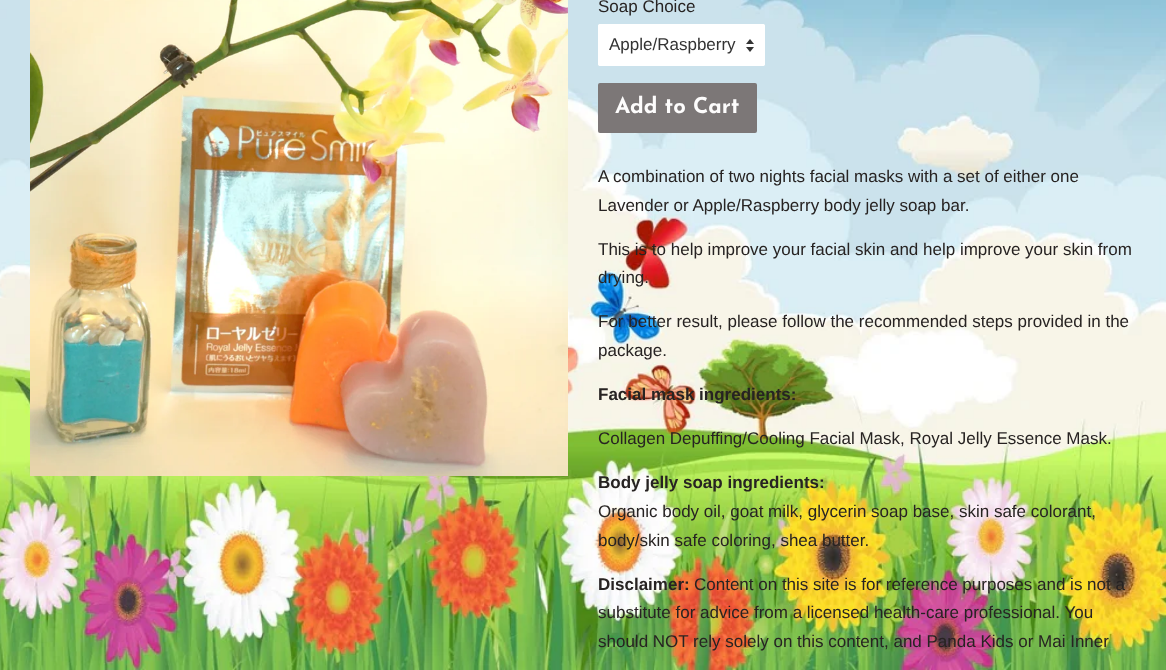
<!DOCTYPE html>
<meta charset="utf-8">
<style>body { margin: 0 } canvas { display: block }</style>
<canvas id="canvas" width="1166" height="670"></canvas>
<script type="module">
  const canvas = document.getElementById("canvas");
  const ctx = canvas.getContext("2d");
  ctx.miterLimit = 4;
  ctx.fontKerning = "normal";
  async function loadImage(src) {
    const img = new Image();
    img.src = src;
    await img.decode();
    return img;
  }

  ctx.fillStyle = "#ffffff";
  ctx.fillRect(0, 0, 1166, 670);
  ctx.drawImage(await loadImage("img1.png"), 0, 0, 1166, 670);
  ctx.drawImage(await loadImage("img2.png"), 30, 0, 538, 476);
  ctx.font = "17px Liberation Sans";
  ctx.fillStyle = "#272322";
  ctx.fillText("Soap Choice", 598, 12);
  ctx.fillStyle = "#ffffff";
  ctx.beginPath();
  ctx.roundRect(598, 24, 167, 42, 2);
  ctx.fill();
  ctx.drawImage(await loadImage("img3.png"), 746, 39, 8, 13);
  ctx.beginPath();
  ctx.roundRect(598.5, 24.5, 166, 41, 1.5);
  ctx.strokeStyle = "#ffffff";
  ctx.stroke();
  ctx.fillStyle = "#333333";
  ctx.fillText("Apple/Raspberry", 609, 50);
  ctx.fillStyle = "#7c7777";
  ctx.beginPath();
  ctx.roundRect(598, 83, 159, 50, 2);
  ctx.fill();
  ctx.font = "100 22px Josefin Sans";
  ctx.fillStyle = "#fdfcfc";
  ctx.fillText("Add to Cart", 615, 113);
  ctx.font = "17px Liberation Sans";
  ctx.fillStyle = "#272322";
  ctx.fillText("A combination of two nights facial masks with a set of either one", 598, 182);
  ctx.fillText("Lavender or Apple/Raspberry body jelly soap bar.", 598, 211);
  ctx.fillText("This is to help improve your facial skin and help improve your skin from", 598, 255);
  ctx.fillText("drying.", 598, 283);
  ctx.fillText("For better result, please follow the recommended steps provided in the", 598, 327);
  ctx.fillText("package.", 598, 356);
  ctx.font = "bold 17px Liberation Sans";
  ctx.fillText("Facial mask ingredients:", 598, 400);
  ctx.font = "17px Liberation Sans";
  ctx.fillText("Collagen Depuffing/Cooling Facial Mask, Royal Jelly Essence Mask.", 598, 444);
  ctx.font = "bold 17px Liberation Sans";
  ctx.fillText("Body jelly soap ingredients:", 598, 488);
  ctx.font = "17px Liberation Sans";
  ctx.fillText("Organic body oil, goat milk, glycerin soap base, skin safe colorant,", 598, 517);
  ctx.fillText("body/skin safe coloring, shea butter.", 598, 546);
  ctx.font = "bold 17px Liberation Sans";
  ctx.fillText("Disclaimer:", 598, 590);
  ctx.font = "17px Liberation Sans";
  ctx.fillText("Content on this site is for reference purposes and is not a", 694, 590);
  ctx.fillText("substitute for advice from a licensed health-care professional. You", 598, 618);
  ctx.fillText("should NOT rely solely on this content, and Panda Kids or Mai Inner", 598, 647);
</script>
